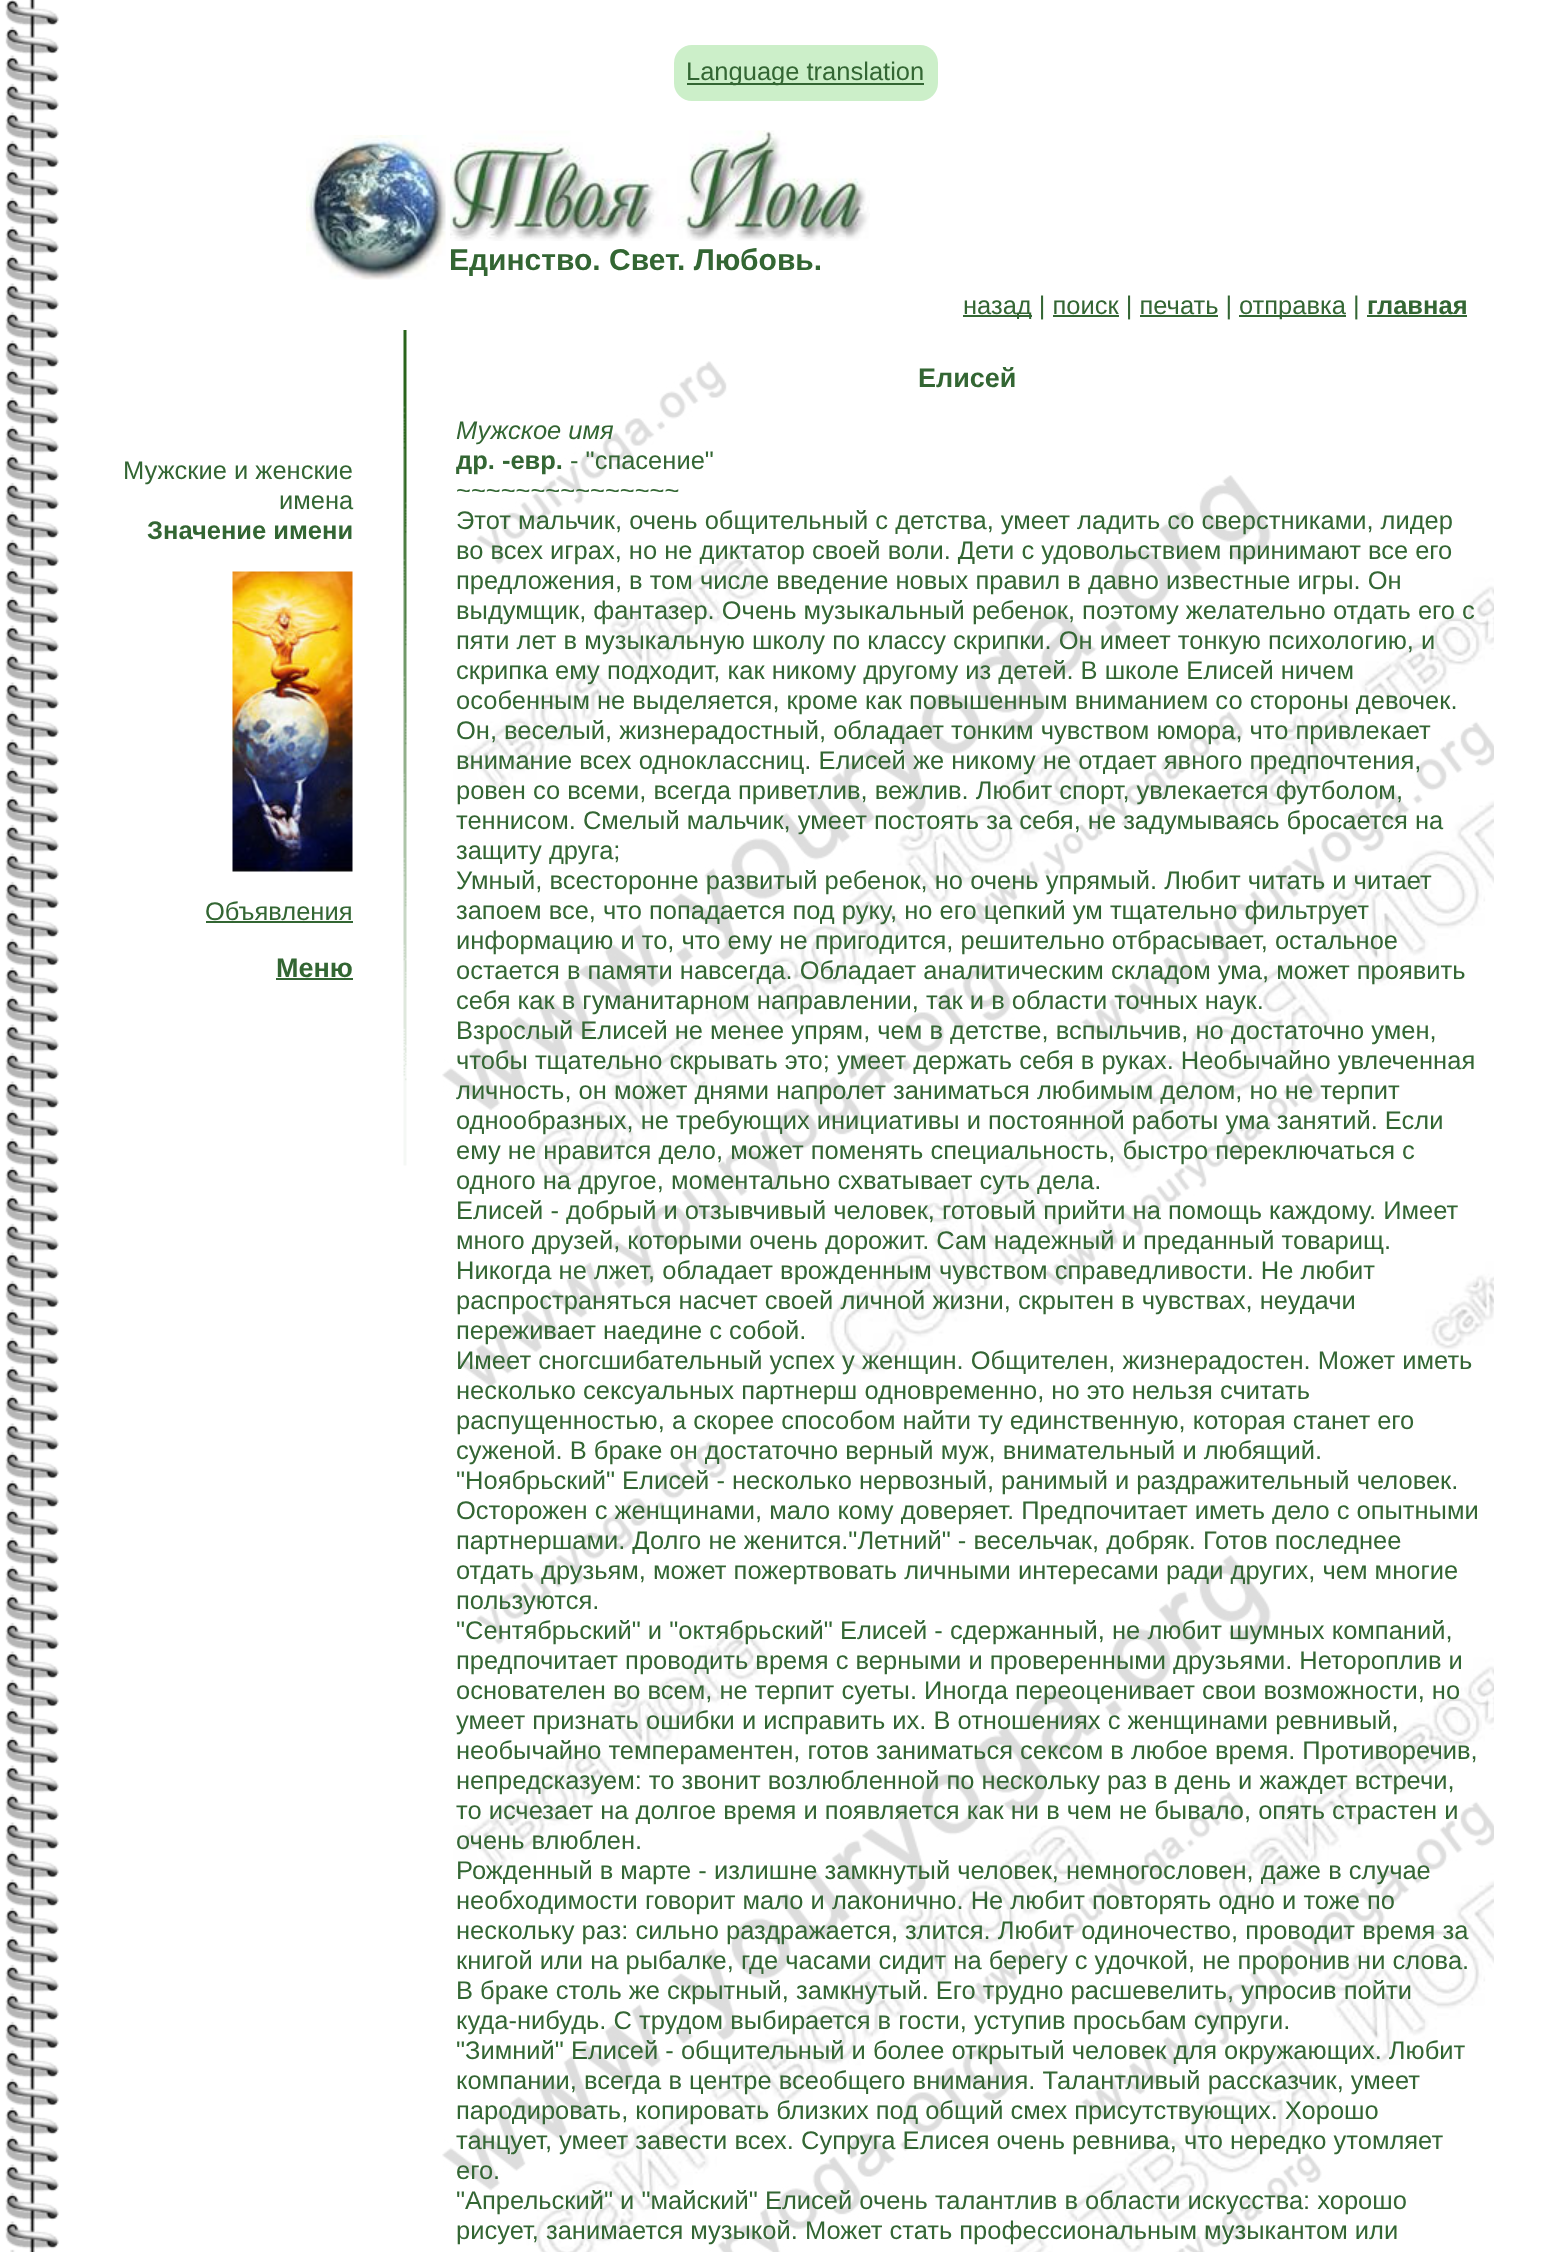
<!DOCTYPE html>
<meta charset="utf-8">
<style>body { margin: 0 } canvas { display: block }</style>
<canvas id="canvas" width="1551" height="2252"></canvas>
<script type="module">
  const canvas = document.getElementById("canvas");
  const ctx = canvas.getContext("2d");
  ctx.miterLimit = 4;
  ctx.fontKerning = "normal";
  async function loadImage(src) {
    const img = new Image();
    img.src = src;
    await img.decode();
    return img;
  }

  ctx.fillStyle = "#ffffff";
  ctx.fillRect(0, 0, 1551, 2252);
  ctx.drawImage(await loadImage("img1.png"), 5, 0, 54, 2252);
  ctx.fillStyle = "#ccefc9";
  ctx.beginPath();
  ctx.roundRect(674, 45, 264, 56, 18);
  ctx.fill();
  ctx.fillStyle = "#336633";
  ctx.fillRect(687, 83, 237, 2);
  ctx.font = "25.5px Liberation Sans";
  ctx.fillText("Language translation", 686, 80);
  ctx.drawImage(await loadImage("img2.png"), 306, 135, 140, 145);
  ctx.drawImage(await loadImage("img3.png"), 450, 130, 420, 111);
  ctx.font = "bold 30px Liberation Sans";
  ctx.fillText("Единство. Свет. Любовь.", 449, 270);
  ctx.fillRect(963, 315, 69, 2);
  ctx.font = "25.5px Liberation Sans";
  ctx.fillText("назад | поиск | печать |", 963, 314);
  ctx.fillRect(1239, 315, 107, 2);
  ctx.fillText("отправка |", 1239, 314);
  ctx.font = "bold 25.5px Liberation Sans";
  ctx.fillText("главная", 1367, 314);
  ctx.fillRect(1367, 315, 100, 2);
  ctx.fillRect(1053, 315, 66, 2);
  ctx.fillRect(1140, 315, 78, 2);
  ctx.font = "25.5px Liberation Sans";
  ctx.fillText("Мужские и женские", 123, 479);
  ctx.fillText("имена", 279, 509);
  ctx.font = "bold 25.5px Liberation Sans";
  ctx.fillText("Значение имени", 147, 539);
  ctx.drawImage(await loadImage("img4.png"), 232, 571, 121, 301);
  ctx.font = "25.5px Liberation Sans";
  ctx.fillText("Объявления", 205, 920);
  ctx.fillRect(206, 921, 147, 2);
  ctx.font = "bold 27px Liberation Sans";
  ctx.fillText("Меню", 276, 977);
  ctx.fillRect(276, 978, 77, 2);
  ctx.drawImage(await loadImage("img5.png"), 403, 330, 4, 836);
  ctx.drawImage(await loadImage("img6.png"), 442, 361, 1052, 1891);
  ctx.fillText("Елисей", 918, 387);
  ctx.font = "italic 25.5px Liberation Sans";
  ctx.fillText("Мужское имя", 456, 439);
  ctx.font = "bold 25.5px Liberation Sans";
  ctx.fillText("др. -евр.", 456, 469);
  ctx.font = "25.5px Liberation Sans";
  ctx.fillText("- \"спасение\"", 570, 469);
  ctx.fillText("~~~~~~~~~~~~~~~", 456, 499);
  ctx.fillText("Этот мальчик, очень общительный с детства, умеет ладить со сверстниками, лидер", 456, 529);
  ctx.fillText("во всех играх, но не диктатор своей воли. Дети с удовольствием принимают все его", 456, 559);
  ctx.fillText("предложения, в том числе введение новых правил в давно известные игры. Он", 456, 589);
  ctx.fillText("выдумщик, фантазер. Очень музыкальный ребенок, поэтому желательно отдать его с", 456, 619);
  ctx.fillText("пяти лет в музыкальную школу по классу скрипки. Он имеет тонкую психологию, и", 456, 649);
  ctx.fillText("скрипка ему подходит, как никому другому из детей. В школе Елисей ничем", 456, 679);
  ctx.fillText("особенным не выделяется, кроме как повышенным вниманием со стороны девочек.", 456, 709);
  ctx.fillText("Он, веселый, жизнерадостный, обладает тонким чувством юмора, что привлекает", 456, 739);
  ctx.fillText("внимание всех одноклассниц. Елисей же никому не отдает явного предпочтения,", 456, 769);
  ctx.fillText("ровен со всеми, всегда приветлив, вежлив. Любит спорт, увлекается футболом,", 456, 799);
  ctx.fillText("теннисом. Смелый мальчик, умеет постоять за себя, не задумываясь бросается на", 456, 829);
  ctx.fillText("защиту друга;", 456, 859);
  ctx.fillText("Умный, всесторонне развитый ребенок, но очень упрямый. Любит читать и читает", 456, 889);
  ctx.fillText("запоем все, что попадается под руку, но его цепкий ум тщательно фильтрует", 456, 919);
  ctx.fillText("информацию и то, что ему не пригодится, решительно отбрасывает, остальное", 456, 949);
  ctx.fillText("остается в памяти навсегда. Обладает аналитическим складом ума, может проявить", 456, 979);
  ctx.fillText("себя как в гуманитарном направлении, так и в области точных наук.", 456, 1009);
  ctx.fillText("Взрослый Елисей не менее упрям, чем в детстве, вспыльчив, но достаточно умен,", 456, 1039);
  ctx.fillText("чтобы тщательно скрывать это; умеет держать себя в руках. Необычайно увлеченная", 456, 1069);
  ctx.fillText("личность, он может днями напролет заниматься любимым делом, но не терпит", 456, 1099);
  ctx.fillText("однообразных, не требующих инициативы и постоянной работы ума занятий. Если", 456, 1129);
  ctx.fillText("ему не нравится дело, может поменять специальность, быстро переключаться с", 456, 1159);
  ctx.fillText("одного на другое, моментально схватывает суть дела.", 456, 1189);
  ctx.fillText("Елисей - добрый и отзывчивый человек, готовый прийти на помощь каждому. Имеет", 456, 1219);
  ctx.fillText("много друзей, которыми очень дорожит. Сам надежный и преданный товарищ.", 456, 1249);
  ctx.fillText("Никогда не лжет, обладает врожденным чувством справедливости. Не любит", 456, 1279);
  ctx.fillText("распространяться насчет своей личной жизни, скрытен в чувствах, неудачи", 456, 1309);
  ctx.fillText("переживает наедине с собой.", 456, 1339);
  ctx.fillText("Имеет сногсшибательный успех у женщин. Общителен, жизнерадостен. Может иметь", 456, 1369);
  ctx.fillText("несколько сексуальных партнерш одновременно, но это нельзя считать", 456, 1399);
  ctx.fillText("распущенностью, а скорее способом найти ту единственную, которая станет его", 456, 1429);
  ctx.fillText("суженой. В браке он достаточно верный муж, внимательный и любящий.", 456, 1459);
  ctx.fillText("\"Ноябрьский\" Елисей - несколько нервозный, ранимый и раздражительный человек.", 456, 1489);
  ctx.fillText("Осторожен с женщинами, мало кому доверяет. Предпочитает иметь дело с опытными", 456, 1519);
  ctx.fillText("партнершами. Долго не женится.\"Летний\" - весельчак, добряк. Готов последнее", 456, 1549);
  ctx.fillText("отдать друзьям, может пожертвовать личными интересами ради других, чем многие", 456, 1579);
  ctx.fillText("пользуются.", 456, 1609);
  ctx.fillText("\"Сентябрьский\" и \"октябрьский\" Елисей - сдержанный, не любит шумных компаний,", 456, 1639);
  ctx.fillText("предпочитает проводить время с верными и проверенными друзьями. Нетороплив и", 456, 1669);
  ctx.fillText("основателен во всем, не терпит суеты. Иногда переоценивает свои возможности, но", 456, 1699);
  ctx.fillText("умеет признать ошибки и исправить их. В отношениях с женщинами ревнивый,", 456, 1729);
  ctx.fillText("необычайно темпераментен, готов заниматься сексом в любое время. Противоречив,", 456, 1759);
  ctx.fillText("непредсказуем: то звонит возлюбленной по нескольку раз в день и жаждет встречи,", 456, 1789);
  ctx.fillText("то исчезает на долгое время и появляется как ни в чем не бывало, опять страстен и", 456, 1819);
  ctx.fillText("очень влюблен.", 456, 1849);
  ctx.fillText("Рожденный в марте - излишне замкнутый человек, немногословен, даже в случае", 456, 1879);
  ctx.fillText("необходимости говорит мало и лаконично. Не любит повторять одно и тоже по", 456, 1909);
  ctx.fillText("нескольку раз: сильно раздражается, злится. Любит одиночество, проводит время за", 456, 1939);
  ctx.fillText("книгой или на рыбалке, где часами сидит на берегу с удочкой, не проронив ни слова.", 456, 1969);
  ctx.fillText("В браке столь же скрытный, замкнутый. Его трудно расшевелить, упросив пойти", 456, 1999);
  ctx.fillText("куда-нибудь. С трудом выбирается в гости, уступив просьбам супруги.", 456, 2029);
  ctx.fillText("\"Зимний\" Елисей - общительный и более открытый человек для окружающих. Любит", 456, 2059);
  ctx.fillText("компании, всегда в центре всеобщего внимания. Талантливый рассказчик, умеет", 456, 2089);
  ctx.fillText("пародировать, копировать близких под общий смех присутствующих. Хорошо", 456, 2119);
  ctx.fillText("танцует, умеет завести всех. Супруга Елисея очень ревнива, что нередко утомляет", 456, 2149);
  ctx.fillText("его.", 456, 2179);
  ctx.fillText("\"Апрельский\" и \"майский\" Елисей очень талантлив в области искусства: хорошо", 456, 2209);
  ctx.fillText("рисует, занимается музыкой. Может стать профессиональным музыкантом или", 456, 2239);
</script>
